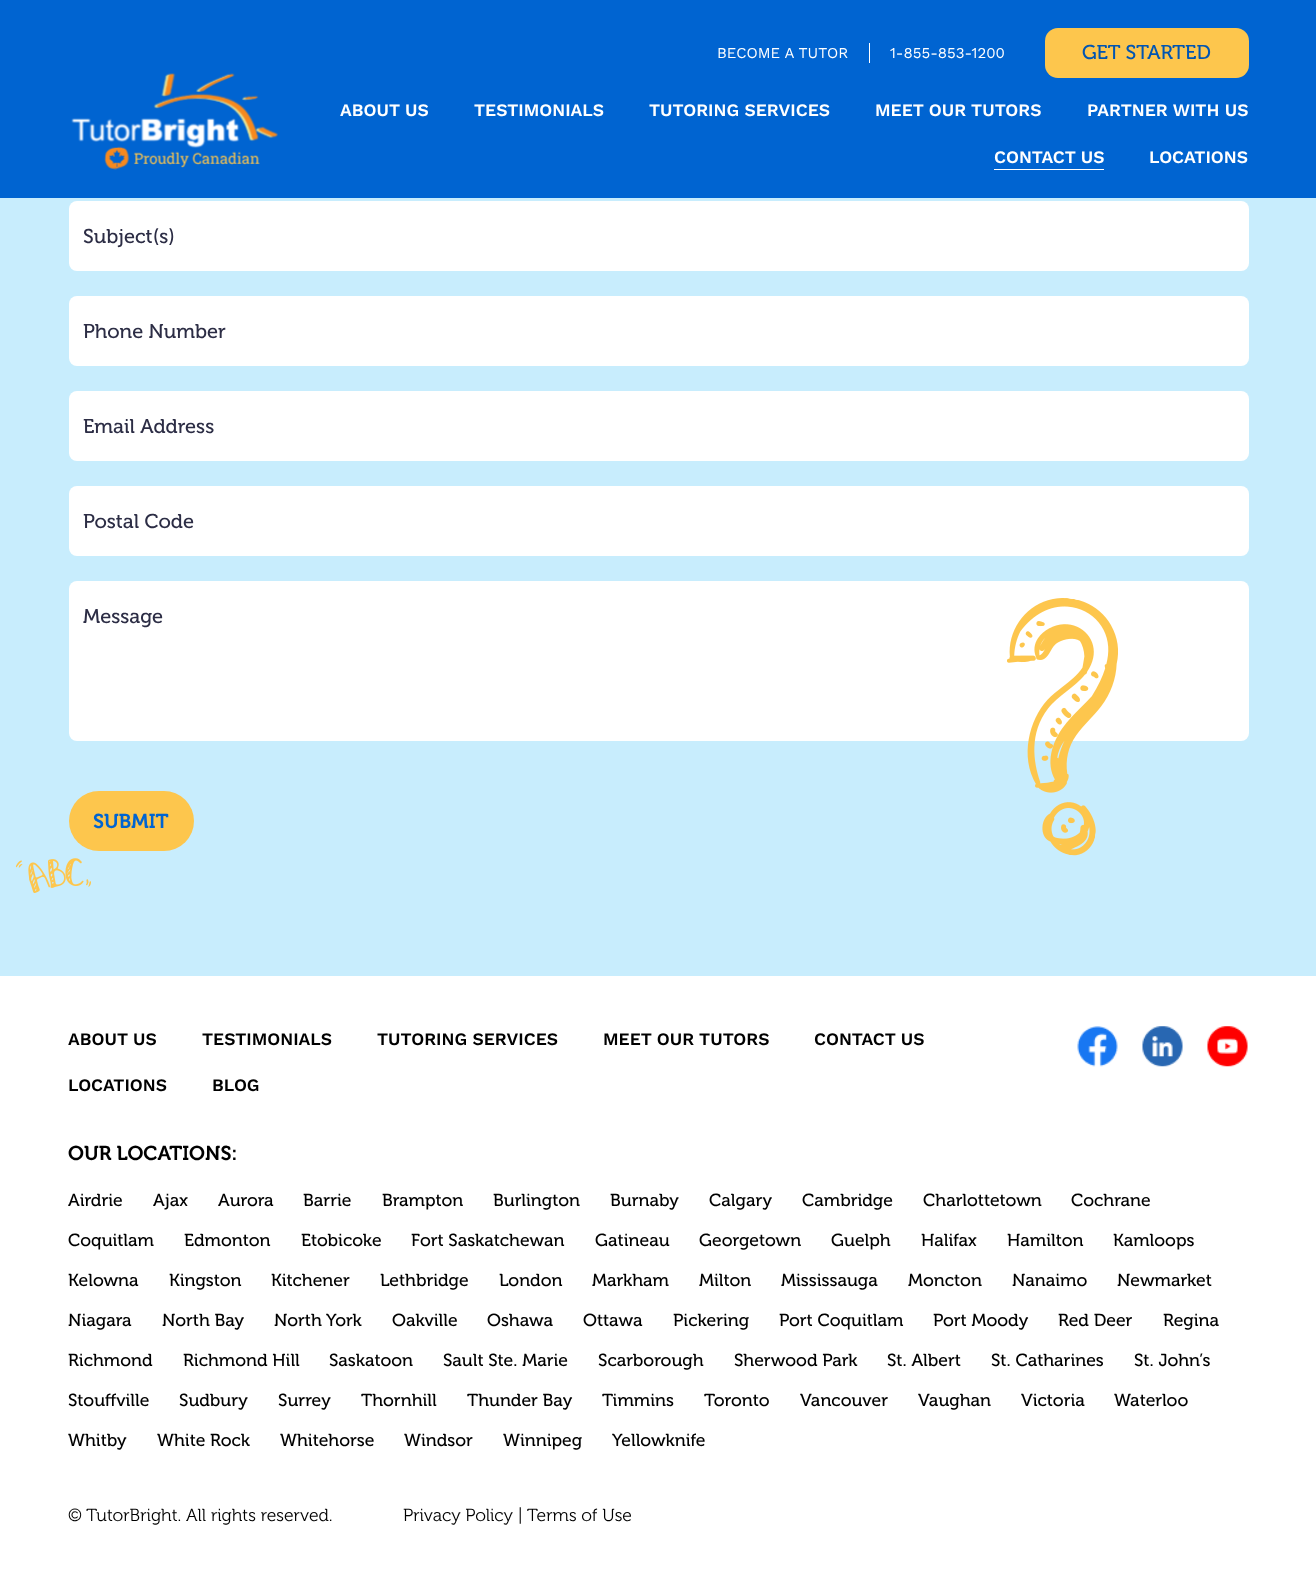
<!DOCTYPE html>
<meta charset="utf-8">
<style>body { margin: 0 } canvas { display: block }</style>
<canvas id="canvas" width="1316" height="1578"></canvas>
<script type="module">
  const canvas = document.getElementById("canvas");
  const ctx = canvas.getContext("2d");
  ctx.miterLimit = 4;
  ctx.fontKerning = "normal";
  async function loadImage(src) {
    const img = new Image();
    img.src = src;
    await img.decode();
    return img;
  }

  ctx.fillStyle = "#ffffff";
  ctx.fillRect(0, 0, 1316, 1578);
  ctx.fillStyle = "#0064d1";
  ctx.fillRect(0, 0, 1316, 198);
  ctx.drawImage(await loadImage("img1.png"), 71, 73, 207, 97);
  ctx.fillStyle = "#ffffff";
  ctx.fillRect(869, 43, 1, 20);
  ctx.font = "15px Work Sans";
  ctx.fillText("BECOME A TUTOR", 717, 58);
  ctx.fillText("1-855-853-1200", 890, 58);
  ctx.fillStyle = "#fdc64d";
  ctx.beginPath();
  ctx.roundRect(1045, 28, 204, 50, 13);
  ctx.fill();
  ctx.font = "20px 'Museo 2'";
  ctx.fillStyle = "#0055b2";
  ctx.fillText("GET STARTED", 1082, 59);
  ctx.font = "600 17.5px Work Sans";
  ctx.fillStyle = "#ffffff";
  ctx.fillText("ABOUT US", 340, 116);
  ctx.fillText("TESTIMONIALS", 474, 116);
  ctx.fillText("TUTORING SERVICES", 649, 116);
  ctx.fillText("MEET OUR TUTORS", 875, 116);
  ctx.fillText("PARTNER WITH US", 1087, 116);
  ctx.fillRect(994, 169, 110, 1);
  ctx.fillText("CONTACT US", 994, 163);
  ctx.fillText("LOCATIONS", 1149, 163);
  ctx.fillStyle = "#c8edfd";
  ctx.fillRect(0, 198, 1316, 778);
  ctx.fillStyle = "#ffffff";
  ctx.beginPath();
  ctx.roundRect(69, 201, 1180, 70, 8);
  ctx.fill();
  ctx.font = "20px 'Museo 2'";
  ctx.fillStyle = "#2c2d45";
  ctx.fillText("Subject(s)", 83, 243);
  ctx.fillStyle = "#ffffff";
  ctx.beginPath();
  ctx.roundRect(69, 296, 1180, 70, 8);
  ctx.fill();
  ctx.fillStyle = "#2c2d45";
  ctx.fillText("Phone Number", 83, 338);
  ctx.fillStyle = "#ffffff";
  ctx.beginPath();
  ctx.roundRect(69, 391, 1180, 70, 8);
  ctx.fill();
  ctx.fillStyle = "#2c2d45";
  ctx.fillText("Email Address", 83, 433);
  ctx.fillStyle = "#ffffff";
  ctx.beginPath();
  ctx.roundRect(69, 486, 1180, 70, 8);
  ctx.fill();
  ctx.fillStyle = "#2c2d45";
  ctx.fillText("Postal Code", 83, 528);
  ctx.fillStyle = "#ffffff";
  ctx.beginPath();
  ctx.roundRect(69, 581, 1180, 160, 8);
  ctx.fill();
  ctx.fillStyle = "#2c2d45";
  ctx.fillText("Message", 83, 623);
  ctx.fillStyle = "#fdc64d";
  ctx.beginPath();
  ctx.roundRect(69, 791, 125, 60, 30);
  ctx.fill();
  ctx.font = "20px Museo";
  ctx.fillStyle = "#0064d1";
  ctx.fillText("SUBMIT", 93, 828);
  ctx.drawImage(await loadImage("img2.png"), 1007, 598, 111, 258);
  ctx.drawImage(await loadImage("img3.png"), 15, 858, 76, 35);
  ctx.font = "600 17.5px Work Sans";
  ctx.fillStyle = "#000000";
  ctx.fillText("ABOUT US", 68, 1045);
  ctx.fillText("TESTIMONIALS", 202, 1045);
  ctx.fillText("TUTORING SERVICES", 377, 1045);
  ctx.fillText("MEET OUR TUTORS", 603, 1045);
  ctx.fillText("CONTACT US", 814, 1045);
  ctx.fillText("LOCATIONS", 68, 1091);
  ctx.fillText("BLOG", 212, 1091);
  ctx.drawImage(await loadImage("img4.png"), 1077, 1026, 41, 41);
  ctx.drawImage(await loadImage("img5.png"), 1142, 1026, 41, 41);
  ctx.drawImage(await loadImage("img6.png"), 1207, 1026, 41, 41);
  ctx.font = "20px Museo";
  ctx.fillText("OUR LOCATIONS:", 68, 1160);
  ctx.font = "17.5px 'Museo 2'";
  ctx.fillText("Airdrie", 68, 1206);
  ctx.fillText("Ajax", 153, 1206);
  ctx.fillText("Aurora", 218, 1206);
  ctx.fillText("Barrie", 303, 1206);
  ctx.fillText("Brampton", 382, 1206);
  ctx.fillText("Burlington", 493, 1206);
  ctx.fillText("Burnaby", 610, 1206);
  ctx.fillText("Calgary", 709, 1206);
  ctx.fillText("Cambridge", 802, 1206);
  ctx.fillText("Charlottetown", 923, 1206);
  ctx.fillText("Cochrane", 1071, 1206);
  ctx.fillText("Coquitlam", 68, 1246);
  ctx.fillText("Edmonton", 184, 1246);
  ctx.fillText("Etobicoke", 301, 1246);
  ctx.fillText("Fort Saskatchewan", 411, 1246);
  ctx.fillText("Gatineau", 595, 1246);
  ctx.fillText("Georgetown", 699, 1246);
  ctx.fillText("Guelph", 831, 1246);
  ctx.fillText("Halifax", 921, 1246);
  ctx.fillText("Hamilton", 1007, 1246);
  ctx.fillText("Kamloops", 1113, 1246);
  ctx.fillText("Kelowna", 68, 1286);
  ctx.fillText("Kingston", 169, 1286);
  ctx.fillText("Kitchener", 271, 1286);
  ctx.fillText("Lethbridge", 380, 1286);
  ctx.fillText("London", 499, 1286);
  ctx.fillText("Markham", 592, 1286);
  ctx.fillText("Milton", 699, 1286);
  ctx.fillText("Mississauga", 781, 1286);
  ctx.fillText("Moncton", 908, 1286);
  ctx.fillText("Nanaimo", 1012, 1286);
  ctx.fillText("Newmarket", 1117, 1286);
  ctx.fillText("Niagara", 68, 1326);
  ctx.fillText("North Bay", 162, 1326);
  ctx.fillText("North York", 274, 1326);
  ctx.fillText("Oakville", 392, 1326);
  ctx.fillText("Oshawa", 487, 1326);
  ctx.fillText("Ottawa", 583, 1326);
  ctx.fillText("Pickering", 673, 1326);
  ctx.fillText("Port Coquitlam", 779, 1326);
  ctx.fillText("Port Moody", 933, 1326);
  ctx.fillText("Red Deer", 1058, 1326);
  ctx.fillText("Regina", 1163, 1326);
  ctx.fillText("Richmond", 68, 1366);
  ctx.fillText("Richmond Hill", 183, 1366);
  ctx.fillText("Saskatoon", 329, 1366);
  ctx.fillText("Sault Ste. Marie", 443, 1366);
  ctx.fillText("Scarborough", 598, 1366);
  ctx.fillText("Sherwood Park", 734, 1366);
  ctx.fillText("St. Albert", 887, 1366);
  ctx.fillText("St. Catharines", 991, 1366);
  ctx.fillText("St. John’s", 1134, 1366);
  ctx.fillText("Stouffville", 68, 1406);
  ctx.fillText("Sudbury", 179, 1406);
  ctx.fillText("Surrey", 278, 1406);
  ctx.fillText("Thornhill", 361, 1406);
  ctx.fillText("Thunder Bay", 467, 1406);
  ctx.fillText("Timmins", 602, 1406);
  ctx.fillText("Toronto", 704, 1406);
  ctx.fillText("Vancouver", 800, 1406);
  ctx.fillText("Vaughan", 918, 1406);
  ctx.fillText("Victoria", 1021, 1406);
  ctx.fillText("Waterloo", 1114, 1406);
  ctx.fillText("Whitby", 68, 1446);
  ctx.fillText("White Rock", 157, 1446);
  ctx.fillText("Whitehorse", 280, 1446);
  ctx.fillText("Windsor", 404, 1446);
  ctx.fillText("Winnipeg", 503, 1446);
  ctx.fillText("Yellowknife", 612, 1446);
  ctx.font = "17.5px 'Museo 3'";
  ctx.fillText("© TutorBright. All rights reserved.", 68, 1521);
  ctx.fillText("Privacy Policy |", 403, 1521);
  ctx.fillText("Terms of Use", 527, 1521);
</script>
